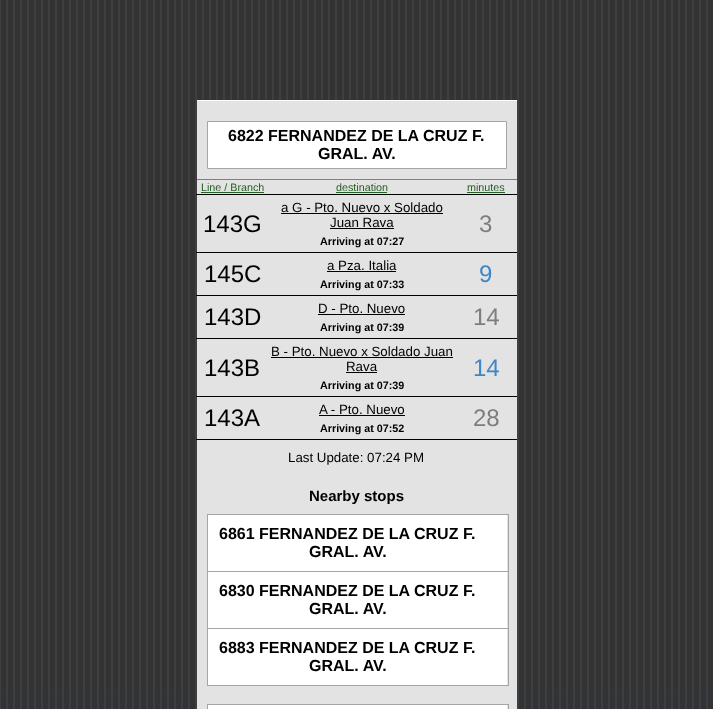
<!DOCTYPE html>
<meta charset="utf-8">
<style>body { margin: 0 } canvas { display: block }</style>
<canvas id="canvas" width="713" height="709"></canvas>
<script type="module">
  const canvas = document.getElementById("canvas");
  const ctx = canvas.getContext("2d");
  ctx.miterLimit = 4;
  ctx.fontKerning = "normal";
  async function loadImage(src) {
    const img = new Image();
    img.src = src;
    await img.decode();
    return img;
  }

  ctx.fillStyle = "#ffffff";
  ctx.fillRect(0, 0, 713, 709);
  ctx.drawImage(await loadImage("img1.png"), 0, 0, 713, 709);
  ctx.fillStyle = "#e3e3e3";
  ctx.fillRect(197, 101, 320, 608);
  ctx.fillStyle = "#ffffff";
  ctx.fillRect(197, 100, 320, 1);
  ctx.beginPath();
  ctx.rect(207.5, 121.5, 299, 47);
  ctx.fill();
  ctx.strokeStyle = "#a5a5a5";
  ctx.stroke();
  ctx.font = "bold 16px Liberation Sans";
  ctx.fillStyle = "#000000";
  ctx.fillText("6822 FERNANDEZ DE LA CRUZ F.", 228, 141);
  ctx.fillText("GRAL. AV.", 318, 159);
  ctx.fillStyle = "#808080";
  ctx.fillRect(197, 179, 320, 1);
  ctx.fillStyle = "#000000";
  ctx.fillRect(196, 194, 321, 1);
  ctx.font = "10.75px Liberation Sans";
  ctx.fillStyle = "#225f20";
  ctx.fillText("Line / Branch", 201, 191);
  ctx.fillRect(201, 192, 63, 1);
  ctx.fillText("destination", 336, 191);
  ctx.fillRect(336, 192, 51, 1);
  ctx.fillText("minutes", 467, 191);
  ctx.fillRect(467, 192, 38, 1);
  ctx.fillStyle = "#000000";
  ctx.fillRect(196, 252, 321, 1);
  ctx.font = "24px Liberation Sans";
  ctx.fillText("143G", 203, 232);
  ctx.font = "13.3px Liberation Sans";
  ctx.fillText("a G - Pto. Nuevo x Soldado", 281, 212);
  ctx.fillRect(281, 213, 162, 1);
  ctx.fillText("Juan Rava", 330, 227);
  ctx.fillRect(330, 228, 64, 1);
  ctx.font = "bold 10.75px Liberation Sans";
  ctx.fillText("Arriving at 07:27", 320, 245);
  ctx.font = "24px Liberation Sans";
  ctx.fillStyle = "#817c7c";
  ctx.fillText("3", 479, 232);
  ctx.fillStyle = "#000000";
  ctx.fillRect(196, 295, 321, 1);
  ctx.fillText("145C", 204, 282);
  ctx.font = "13.3px Liberation Sans";
  ctx.fillText("a Pza. Italia", 327, 270);
  ctx.fillRect(327, 271, 69, 1);
  ctx.font = "bold 10.75px Liberation Sans";
  ctx.fillText("Arriving at 07:33", 320, 288);
  ctx.font = "24px Liberation Sans";
  ctx.fillStyle = "#3f86c8";
  ctx.fillText("9", 479, 282);
  ctx.fillStyle = "#000000";
  ctx.fillRect(196, 338, 321, 1);
  ctx.fillText("143D", 204, 325);
  ctx.font = "13.3px Liberation Sans";
  ctx.fillText("D - Pto. Nuevo", 318, 313);
  ctx.fillRect(318, 314, 87, 1);
  ctx.font = "bold 10.75px Liberation Sans";
  ctx.fillText("Arriving at 07:39", 320, 331);
  ctx.font = "24px Liberation Sans";
  ctx.fillStyle = "#817c7c";
  ctx.fillText("14", 473, 325);
  ctx.fillStyle = "#000000";
  ctx.fillRect(196, 396, 321, 1);
  ctx.fillText("143B", 204, 376);
  ctx.font = "13.3px Liberation Sans";
  ctx.fillText("B - Pto. Nuevo x Soldado Juan", 271, 356);
  ctx.fillRect(271, 357, 182, 1);
  ctx.fillText("Rava", 346, 371);
  ctx.fillRect(346, 372, 31, 1);
  ctx.font = "bold 10.75px Liberation Sans";
  ctx.fillText("Arriving at 07:39", 320, 389);
  ctx.font = "24px Liberation Sans";
  ctx.fillStyle = "#3f86c8";
  ctx.fillText("14", 473, 376);
  ctx.fillStyle = "#000000";
  ctx.fillRect(196, 439, 321, 1);
  ctx.fillText("143A", 204, 426);
  ctx.font = "13.3px Liberation Sans";
  ctx.fillText("A - Pto. Nuevo", 319, 414);
  ctx.fillRect(319, 415, 86, 1);
  ctx.font = "bold 10.75px Liberation Sans";
  ctx.fillText("Arriving at 07:52", 320, 432);
  ctx.font = "24px Liberation Sans";
  ctx.fillStyle = "#817c7c";
  ctx.fillText("28", 473, 426);
  ctx.font = "13.3px Liberation Sans";
  ctx.fillStyle = "#000000";
  ctx.fillText("Last Update: 07:24 PM", 288, 462);
  ctx.font = "bold 15px Liberation Sans";
  ctx.fillText("Nearby stops", 309, 501);
  ctx.fillStyle = "#ffffff";
  ctx.fillRect(208, 515, 299, 170);
  ctx.strokeRect(207.5, 514.5, 301, 57);
  ctx.font = "bold 16px Liberation Sans";
  ctx.fillStyle = "#000000";
  ctx.fillText("6861 FERNANDEZ DE LA CRUZ F.", 219, 539);
  ctx.fillText("GRAL. AV.", 309, 557);
  ctx.strokeRect(207.5, 571.5, 301, 57);
  ctx.fillText("6830 FERNANDEZ DE LA CRUZ F.", 219, 596);
  ctx.fillText("GRAL. AV.", 309, 614);
  ctx.strokeRect(207.5, 628.5, 301, 57);
  ctx.fillText("6883 FERNANDEZ DE LA CRUZ F.", 219, 653);
  ctx.fillText("GRAL. AV.", 309, 671);
  ctx.fillStyle = "#ffffff";
  ctx.fillRect(207, 705, 300, 4);
  ctx.strokeRect(207.5, 704.5, 301, 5);
</script>
